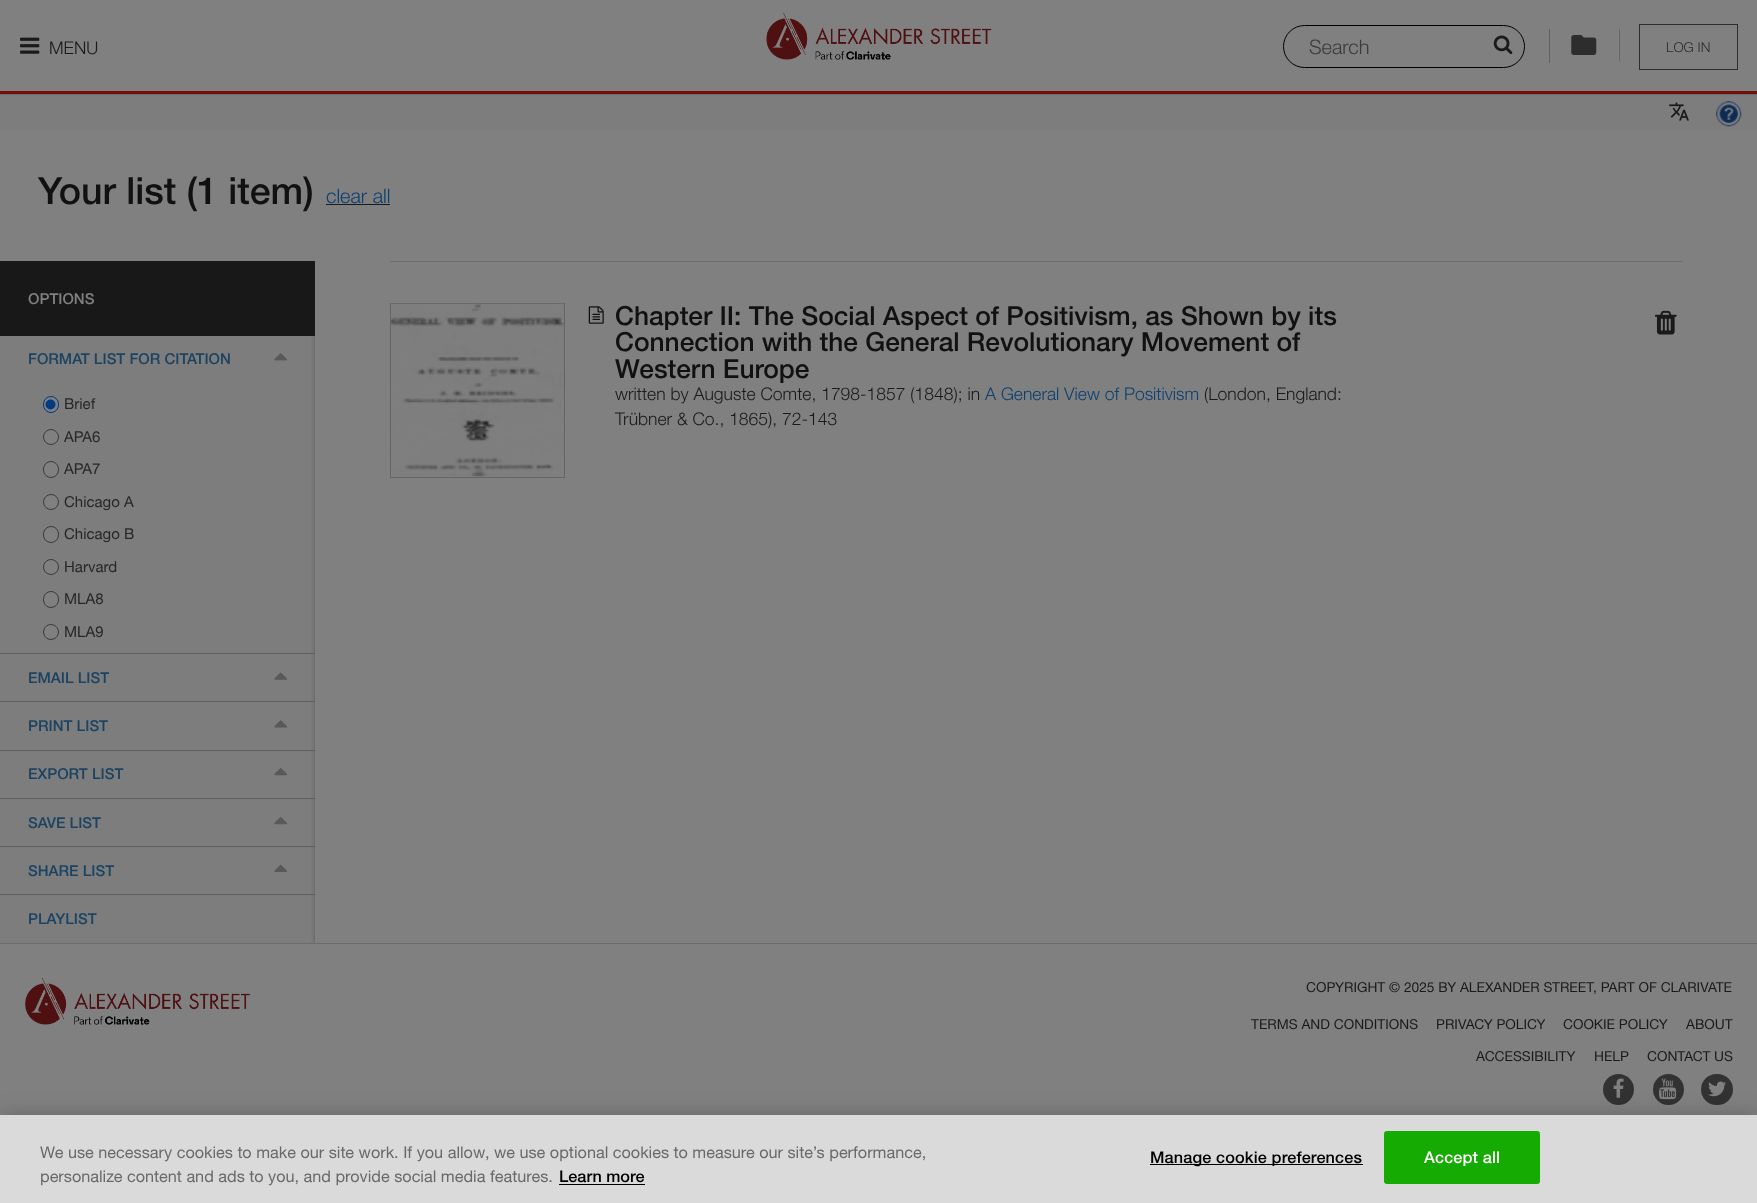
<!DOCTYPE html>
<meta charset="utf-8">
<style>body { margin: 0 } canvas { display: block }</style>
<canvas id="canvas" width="1757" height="1203"></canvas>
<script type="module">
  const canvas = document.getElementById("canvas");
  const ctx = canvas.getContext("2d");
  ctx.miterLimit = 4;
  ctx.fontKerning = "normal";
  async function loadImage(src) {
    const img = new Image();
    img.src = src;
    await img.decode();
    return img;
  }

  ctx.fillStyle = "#808080";
  ctx.fillRect(0, 0, 1757, 1203);
  ctx.fillStyle = "#6f0e0b";
  ctx.fillRect(0, 91, 1757, 3);
  ctx.drawImage(await loadImage("img1.png"), 20, 37, 20, 17);
  ctx.font = "300 17.5px 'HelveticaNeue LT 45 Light'";
  ctx.fillStyle = "#1a1a1a";
  ctx.fillText("MENU", 49, 54);
  ctx.drawImage(await loadImage("img2.png"), 766, 12, 226, 48);
  ctx.beginPath();
  ctx.roundRect(1283.5, 25.5, 241, 42, 21);
  ctx.strokeStyle = "#000000";
  ctx.stroke();
  ctx.font = "300 20px 'HelveticaNeue LT 45 Light'";
  ctx.fillStyle = "#3b3b3b";
  ctx.fillText("Search", 1309, 54);
  ctx.drawImage(await loadImage("img3.png"), 1493, 35, 20, 20);
  ctx.fillStyle = "#626262";
  ctx.fillRect(1549, 29, 1, 34);
  ctx.drawImage(await loadImage("img4.png"), 1571, 35, 26, 20);
  ctx.fillStyle = "#666666";
  ctx.fillRect(1619, 29, 1, 32);
  ctx.strokeStyle = "#2e2d2d";
  ctx.strokeRect(1639.5, 24.5, 98, 45);
  ctx.font = "300 13.75px 'HelveticaNeue LT 45 Light'";
  ctx.fillStyle = "#2e2d2d";
  ctx.fillText("LOG IN", 1666, 52);
  ctx.fillStyle = "#7d7d7d";
  ctx.fillRect(0, 95, 1757, 35);
  ctx.fillStyle = "#6c6c6c";
  ctx.fillRect(0, 94, 1757, 1);
  ctx.drawImage(await loadImage("img5.png"), 1669, 102, 20, 19);
  ctx.drawImage(await loadImage("img6.png"), 1716, 101, 26, 26);
  ctx.font = "500 37.5px Helvetica Neue";
  ctx.fillStyle = "#111111";
  ctx.fillText("Your list (1 item)", 38, 204);
  ctx.font = "300 20px 'HelveticaNeue LT 45 Light'";
  ctx.fillStyle = "#0d3f70";
  ctx.fillText("clear all", 326, 203);
  ctx.fillStyle = "#1a1a1a";
  ctx.fillRect(326, 204, 64, 1);
  ctx.fillStyle = "#7d7d7d";
  ctx.fillRect(0, 336, 315, 607);
  ctx.drawImage(await loadImage("img7.png"), 311, 336, 4, 607);
  ctx.fillStyle = "#181818";
  ctx.fillRect(0, 261, 315, 75);
  ctx.font = "500 15px Helvetica Neue";
  ctx.fillStyle = "#808080";
  ctx.fillText("OPTIONS", 28, 304);
  ctx.fillStyle = "#1c4362";
  ctx.fillText("FORMAT LIST FOR CITATION", 28, 364);
  ctx.drawImage(await loadImage("img8.png"), 274, 353, 13, 8);
  ctx.fillStyle = "#808080";
  ctx.beginPath();
  ctx.roundRect(43.5, 396.5, 15, 16, 7.5);
  ctx.fill();
  ctx.strokeStyle = "#003b80";
  ctx.stroke();
  ctx.fillStyle = "#003b80";
  ctx.beginPath();
  ctx.arc(50.5, 404.5, 5, 0, Math.PI * 2);
  ctx.fill();
  ctx.font = "15px 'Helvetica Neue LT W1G'";
  ctx.fillStyle = "#272727";
  ctx.fillText("Brief", 64, 409);
  ctx.fillStyle = "#808080";
  ctx.beginPath();
  ctx.arc(51, 437, 7.5, 0, Math.PI * 2);
  ctx.fill();
  ctx.strokeStyle = "#3b3b3b";
  ctx.stroke();
  ctx.fillStyle = "#272727";
  ctx.fillText("APA6", 64, 442);
  ctx.fillStyle = "#808080";
  ctx.beginPath();
  ctx.roundRect(43.5, 461.5, 15, 16, 7.5);
  ctx.fill();
  ctx.stroke();
  ctx.fillStyle = "#272727";
  ctx.fillText("APA7", 64, 474);
  ctx.fillStyle = "#808080";
  ctx.beginPath();
  ctx.arc(51, 502, 7.5, 0, Math.PI * 2);
  ctx.fill();
  ctx.stroke();
  ctx.fillStyle = "#272727";
  ctx.fillText("Chicago A", 64, 507);
  ctx.fillStyle = "#808080";
  ctx.beginPath();
  ctx.roundRect(43.5, 526.5, 15, 16, 7.5);
  ctx.fill();
  ctx.stroke();
  ctx.fillStyle = "#272727";
  ctx.fillText("Chicago B", 64, 539);
  ctx.fillStyle = "#808080";
  ctx.beginPath();
  ctx.arc(51, 567, 7.5, 0, Math.PI * 2);
  ctx.fill();
  ctx.stroke();
  ctx.fillStyle = "#272727";
  ctx.fillText("Harvard", 64, 572);
  ctx.fillStyle = "#808080";
  ctx.beginPath();
  ctx.roundRect(43.5, 591.5, 15, 16, 7.5);
  ctx.fill();
  ctx.stroke();
  ctx.fillStyle = "#272727";
  ctx.fillText("MLA8", 64, 604);
  ctx.fillStyle = "#808080";
  ctx.beginPath();
  ctx.arc(51, 632, 7.5, 0, Math.PI * 2);
  ctx.fill();
  ctx.stroke();
  ctx.fillStyle = "#272727";
  ctx.fillText("MLA9", 64, 637);
  ctx.fillStyle = "#5e5e5e";
  ctx.fillRect(0, 653, 315, 1);
  ctx.font = "500 15px Helvetica Neue";
  ctx.fillStyle = "#1c4362";
  ctx.fillText("EMAIL LIST", 28, 683);
  ctx.drawImage(await loadImage("img9.png"), 274, 672, 13, 8);
  ctx.fillStyle = "#5e5e5e";
  ctx.fillRect(0, 701, 315, 1);
  ctx.fillStyle = "#1c4362";
  ctx.fillText("PRINT LIST", 28, 731);
  ctx.drawImage(await loadImage("img10.png"), 274, 720, 13, 8);
  ctx.fillStyle = "#5e5e5e";
  ctx.fillRect(0, 750, 315, 1);
  ctx.fillStyle = "#1c4362";
  ctx.fillText("EXPORT LIST", 28, 779);
  ctx.drawImage(await loadImage("img11.png"), 274, 768, 13, 8);
  ctx.fillStyle = "#5e5e5e";
  ctx.fillRect(0, 798, 315, 1);
  ctx.fillStyle = "#1c4362";
  ctx.fillText("SAVE LIST", 28, 828);
  ctx.drawImage(await loadImage("img12.png"), 274, 817, 13, 8);
  ctx.fillStyle = "#5e5e5e";
  ctx.fillRect(0, 846, 315, 1);
  ctx.fillStyle = "#1c4362";
  ctx.fillText("SHARE LIST", 28, 876);
  ctx.drawImage(await loadImage("img13.png"), 274, 864, 13, 8);
  ctx.fillStyle = "#5e5e5e";
  ctx.fillRect(0, 894, 315, 1);
  ctx.fillStyle = "#1c4362";
  ctx.fillText("PLAYLIST", 28, 924);
  ctx.fillStyle = "#6c6c6c";
  ctx.fillRect(390, 261, 1293, 1);
  ctx.strokeStyle = "#646464";
  ctx.strokeRect(390.5, 303.5, 174, 174);
  ctx.drawImage(await loadImage("img14.png"), 391, 303, 173, 174);
  ctx.drawImage(await loadImage("img15.png"), 588, 306, 16, 18);
  ctx.font = "500 26.25px Helvetica Neue";
  ctx.fillStyle = "#111111";
  ctx.fillText("Chapter II: The Social Aspect of Positivism, as Shown by its", 615, 325);
  ctx.fillText("Connection with the General Revolutionary Movement of", 615, 351);
  ctx.fillText("Western Europe", 615, 378);
  ctx.font = "300 17.5px 'HelveticaNeue LT 45 Light'";
  ctx.fillStyle = "#1a1a1a";
  ctx.fillText("written by Auguste Comte, 1798-1857 (1848); in", 615, 400);
  ctx.fillStyle = "#0d3f70";
  ctx.fillText("A General View of Positivism", 985, 400);
  ctx.fillStyle = "#1a1a1a";
  ctx.fillText("(London, England:", 1204, 400);
  ctx.fillText("Trübner & Co., 1865), 72-143", 615, 425);
  ctx.drawImage(await loadImage("img16.png"), 1655, 310, 22, 25);
  ctx.fillStyle = "#6c6c6c";
  ctx.fillRect(0, 943, 1757, 1);
  ctx.drawImage(await loadImage("img17.png"), 25, 977, 225, 48);
  ctx.font = "13.75px 'Helvetica Neue LT W1G'";
  ctx.fillStyle = "#1a1a1a";
  ctx.fillText("COPYRIGHT © 2025 BY ALEXANDER STREET, PART OF CLARIVATE", 1306, 992);
  ctx.fillText("TERMS AND CONDITIONS", 1251, 1029);
  ctx.fillText("PRIVACY POLICY", 1436, 1029);
  ctx.fillText("COOKIE POLICY", 1563, 1029);
  ctx.fillText("ABOUT", 1686, 1029);
  ctx.fillText("ACCESSIBILITY", 1476, 1061);
  ctx.fillText("HELP", 1594, 1061);
  ctx.fillText("CONTACT US", 1647, 1061);
  ctx.fillStyle = "#323233";
  ctx.beginPath();
  ctx.arc(1618.5, 1089.5, 15.5, 0, Math.PI * 2);
  ctx.fill();
  ctx.drawImage(await loadImage("img18.png"), 1613, 1078, 11, 20);
  ctx.beginPath();
  ctx.arc(1668.5, 1089.5, 15.5, 0, Math.PI * 2);
  ctx.fill();
  ctx.drawImage(await loadImage("img19.png"), 1659, 1078, 18, 22);
  ctx.beginPath();
  ctx.roundRect(1701, 1074, 32, 31, 15.5);
  ctx.fill();
  ctx.drawImage(await loadImage("img20.png"), 1708, 1081, 18, 16);
  ctx.fillStyle = "rgba(0, 0, 0, 0.2)";
  ctx.filter = "blur(11px)";
  ctx.beginPath();
  ctx.rect(0, 1115, 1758, 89);
  ctx.fill();
  ctx.filter = "none";
  ctx.fillStyle = "#dadada";
  ctx.fillRect(0, 1115, 1757, 88);
  ctx.font = "16.25px 'Helvetica Neue LT W1G'";
  ctx.fillStyle = "#696969";
  ctx.fillText("We use necessary cookies to make our site work. If you allow, we use optional cookies to measure our site’s performance,", 40, 1158);
  ctx.fillText("personalize content and ads to you, and provide social media features.", 40, 1182);
  ctx.font = "500 16.25px Helvetica Neue";
  ctx.fillStyle = "#000000";
  ctx.fillText("Learn more", 559, 1182);
  ctx.fillRect(559, 1184, 86, 1);
  ctx.fillRect(1150, 1164, 213, 1);
  ctx.letterSpacing = "0.15px";
  ctx.fillText("Manage cookie preferences", 1150, 1163);
  ctx.fillStyle = "#16ab03";
  ctx.beginPath();
  ctx.roundRect(1384.5, 1131.5, 155, 52, 2);
  ctx.fill();
  ctx.strokeStyle = "#16ab03";
  ctx.stroke();
  ctx.fillStyle = "#ffffff";
  ctx.fillText("Accept all", 1424, 1163);
</script>
